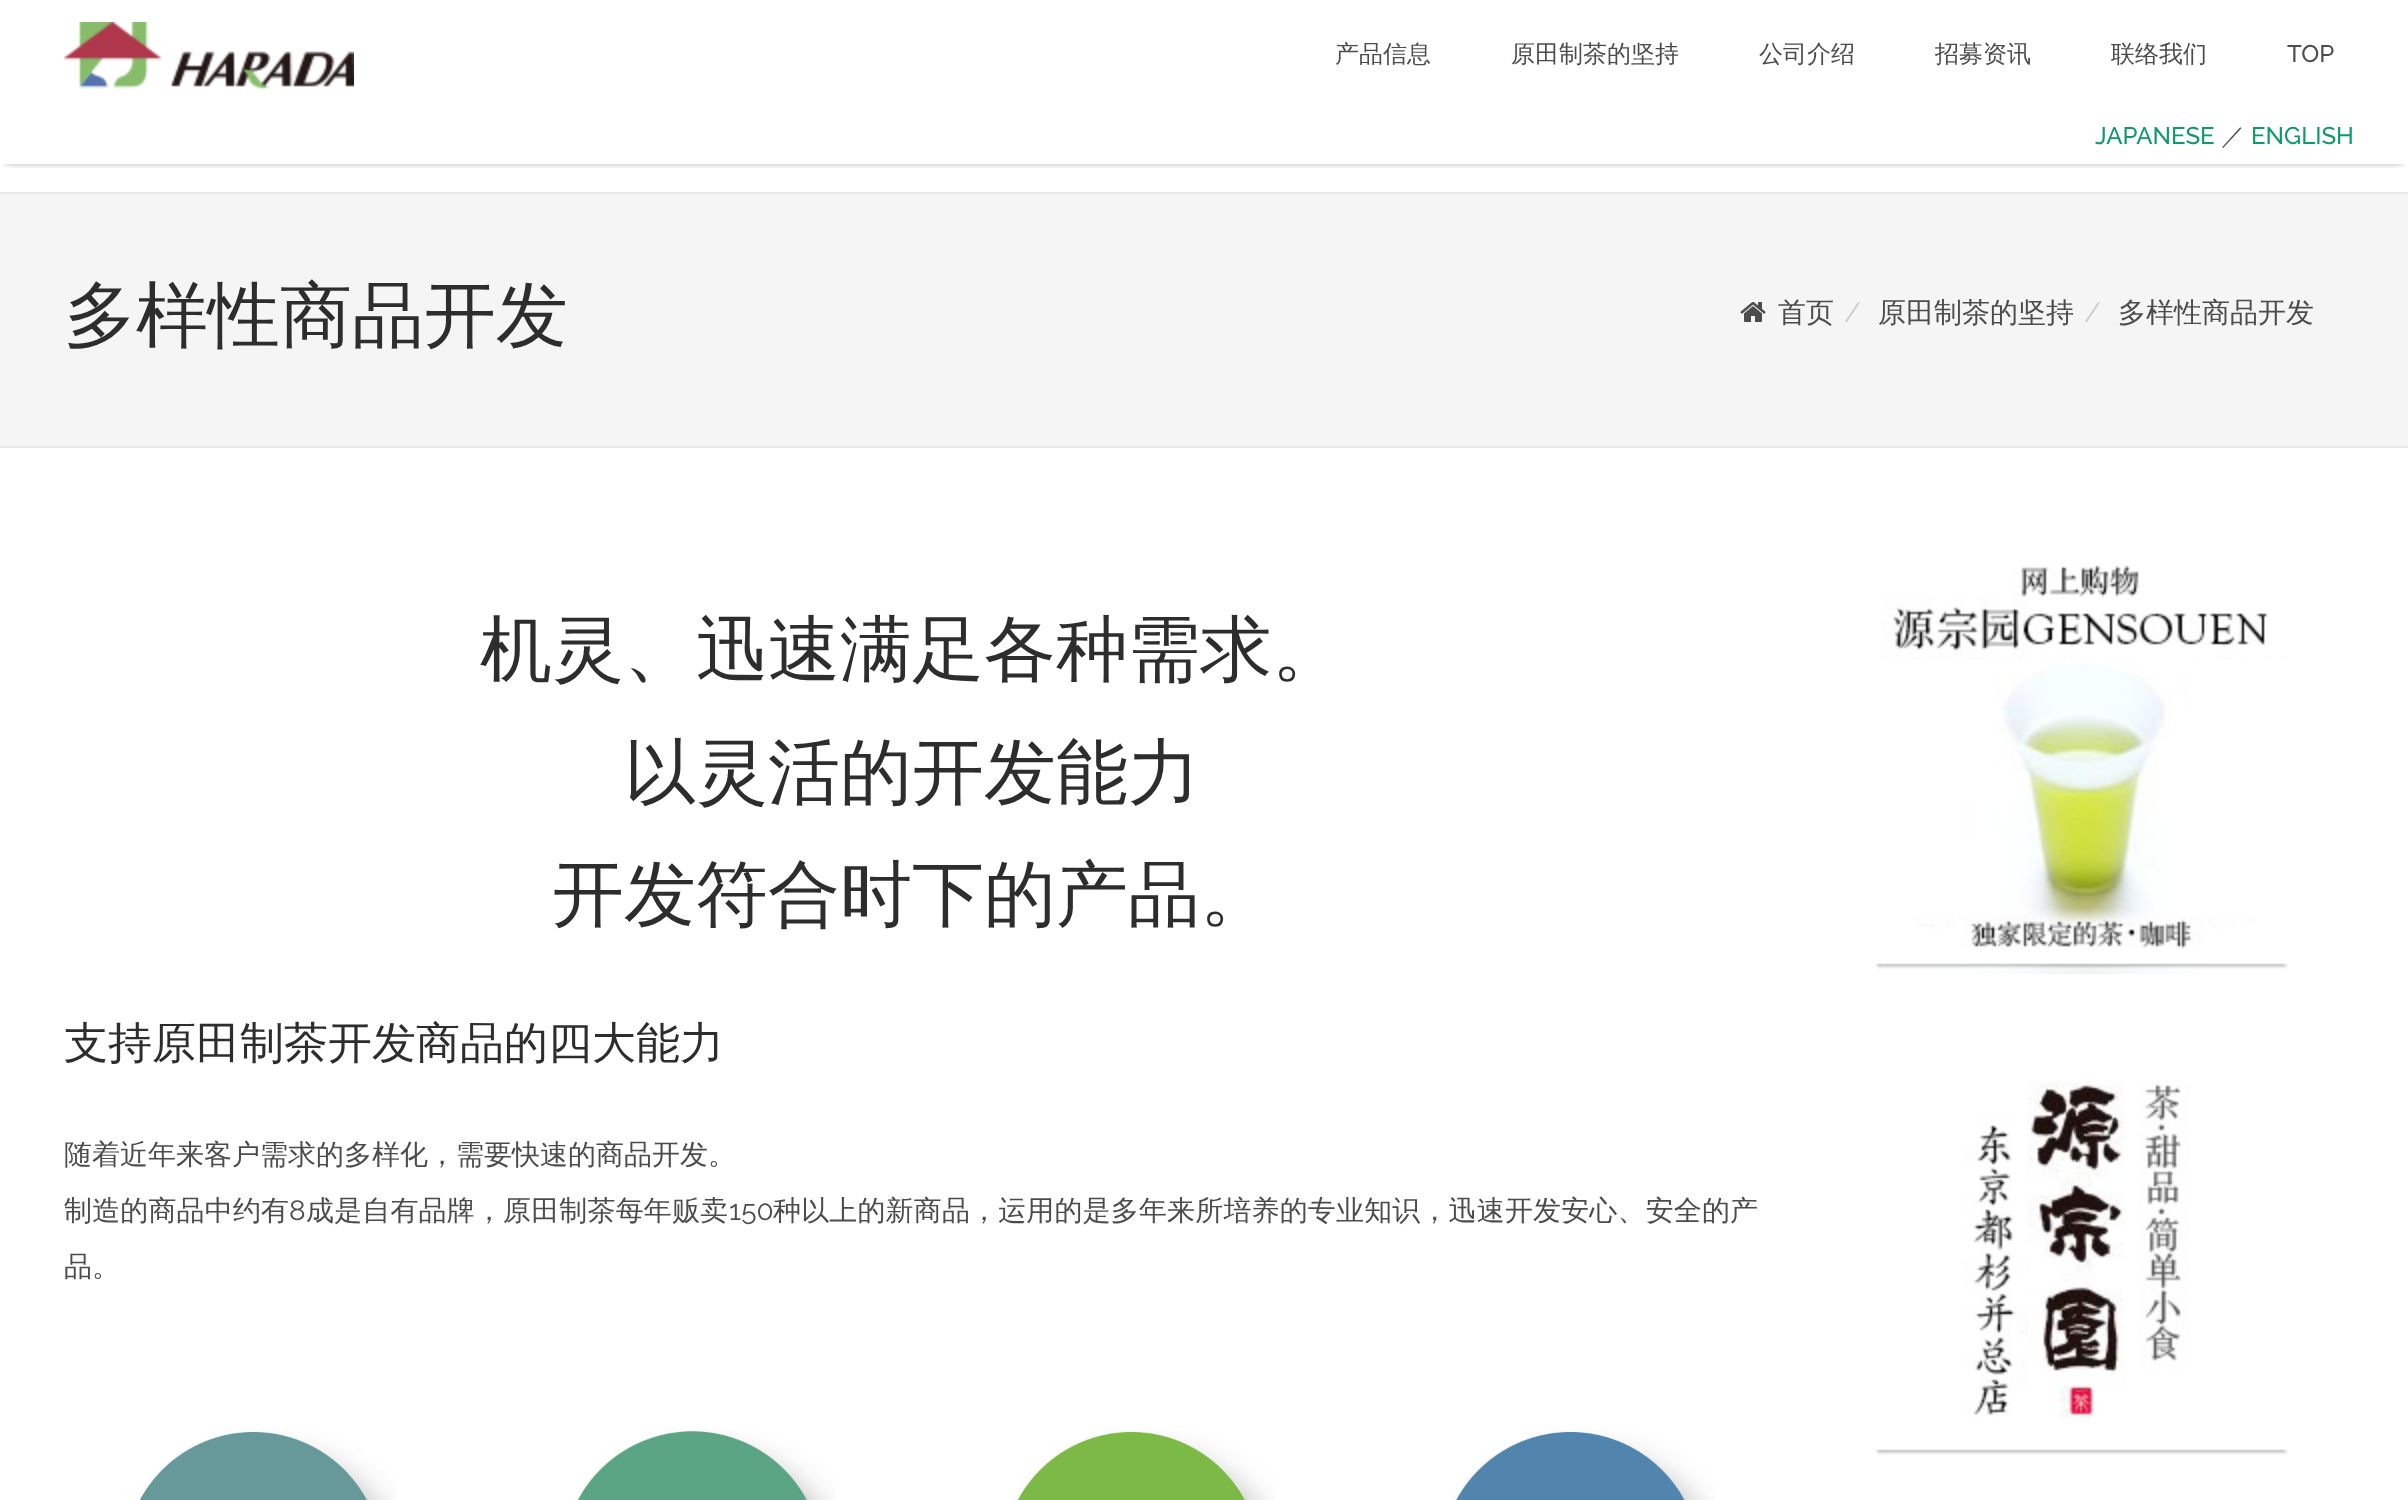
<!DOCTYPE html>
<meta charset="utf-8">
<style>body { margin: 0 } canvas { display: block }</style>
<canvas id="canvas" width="2408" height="1500"></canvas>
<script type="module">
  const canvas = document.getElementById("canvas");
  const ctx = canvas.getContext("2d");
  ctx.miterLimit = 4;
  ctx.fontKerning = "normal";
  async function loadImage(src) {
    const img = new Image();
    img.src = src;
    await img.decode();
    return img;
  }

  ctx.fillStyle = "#ffffff";
  ctx.fillRect(0, 0, 2408, 1500);
  ctx.save();
  ctx.beginPath();
  ctx.rect(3, 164, 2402, 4);
  ctx.clip();
  ctx.fillStyle = "rgba(0, 0, 0, 0.3)";
  ctx.filter = "blur(3px)";
  ctx.beginPath();
  ctx.rect(6, 12, 2396, 152);
  ctx.fill();
  ctx.filter = "none";
  ctx.restore();
  ctx.drawImage(await loadImage("img1.png"), 64, 22, 290, 67);
  ctx.font = "500 24px WenQuanYi Zen Hei";
  ctx.fillStyle = "#4c4c4c";
  ctx.fillText("产品信息", 1335, 62);
  ctx.fillText("原田制茶的坚持", 1511, 62);
  ctx.fillText("公司介绍", 1759, 62);
  ctx.fillText("招募资讯", 1935, 62);
  ctx.fillText("联络我们", 2111, 62);
  ctx.font = "500 24px Raleway";
  ctx.fillText("TOP", 2287, 62);
  ctx.fillStyle = "#0f996b";
  ctx.fillText("JAPANESE", 2095, 144);
  ctx.font = "500 24px WenQuanYi Zen Hei";
  ctx.fillStyle = "#4c4c4c";
  ctx.fillText("／", 2221, 144);
  ctx.font = "500 24px Raleway";
  ctx.fillStyle = "#0f996b";
  ctx.fillText("ENGLISH", 2251, 144);
  ctx.fillStyle = "#f5f5f5";
  ctx.fillRect(0, 194, 2408, 252);
  ctx.fillStyle = "#eaeaea";
  ctx.fillRect(0, 192, 2408, 2);
  ctx.fillRect(0, 446, 2408, 2);
  ctx.font = "500 72px WenQuanYi Zen Hei";
  ctx.fillStyle = "#2d2d2d";
  ctx.fillText("多样性商品开发", 64, 340);
  ctx.drawImage(await loadImage("img2.png"), 1740, 302, 26, 20);
  ctx.font = "500 28px WenQuanYi Zen Hei";
  ctx.fillStyle = "#4c4c4c";
  ctx.fillText("首页", 1778, 322);
  ctx.font = "100 28px Raleway";
  ctx.fillStyle = "#cccccc";
  ctx.fillText("/", 1844, 322);
  ctx.font = "500 28px WenQuanYi Zen Hei";
  ctx.fillStyle = "#4c4c4c";
  ctx.fillText("原田制茶的坚持", 1878, 322);
  ctx.font = "100 28px Raleway";
  ctx.fillStyle = "#cccccc";
  ctx.fillText("/", 2084, 322);
  ctx.font = "500 28px WenQuanYi Zen Hei";
  ctx.fillStyle = "#4c4c4c";
  ctx.fillText("多样性商品开发", 2118, 322);
  ctx.font = "500 72px WenQuanYi Zen Hei";
  ctx.fillStyle = "#2d2d2d";
  ctx.fillText("机灵、迅速满足各种需求。", 480, 674);
  ctx.fillText("以灵活的开发能力", 624, 797);
  ctx.fillText("开发符合时下的产品。", 552, 919);
  ctx.font = "500 44px WenQuanYi Zen Hei";
  ctx.fillText("支持原田制茶开发商品的四大能力", 64, 1058);
  ctx.font = "500 28px WenQuanYi Zen Hei";
  ctx.fillStyle = "#4c4c4c";
  ctx.fillText("随着近年来客户需求的多样化，需要快速的商品开发。", 64, 1164);
  ctx.letterSpacing = "0.15px";
  ctx.fillText("制造的商品中约有", 64, 1220);
  ctx.font = "100 28px Raleway";
  ctx.fillText("8", 289, 1220);
  ctx.font = "500 28px WenQuanYi Zen Hei";
  ctx.fillText("成是自有品牌，原田制茶每年贩卖", 306, 1220);
  ctx.font = "100 28px Raleway";
  ctx.fillText("150", 729, 1220);
  ctx.font = "500 28px WenQuanYi Zen Hei";
  ctx.fillText("种以上的新商品，运用的是多年来所培养的专业知识，迅速开发安心、安全的产", 773, 1220);
  ctx.letterSpacing = "0px";
  ctx.fillText("品。", 64, 1276);
  ctx.drawImage(await loadImage("img3.png"), 139, 1429, 257, 71);
  ctx.drawImage(await loadImage("img4.png"), 573, 1429, 263, 71);
  ctx.drawImage(await loadImage("img5.png"), 1011, 1429, 263, 71);
  ctx.drawImage(await loadImage("img6.png"), 1455, 1429, 259, 71);
  ctx.drawImage(await loadImage("img7.png"), 1875, 565, 413, 409);
  ctx.drawImage(await loadImage("img8.png"), 1875, 1081, 413, 374);
</script>
